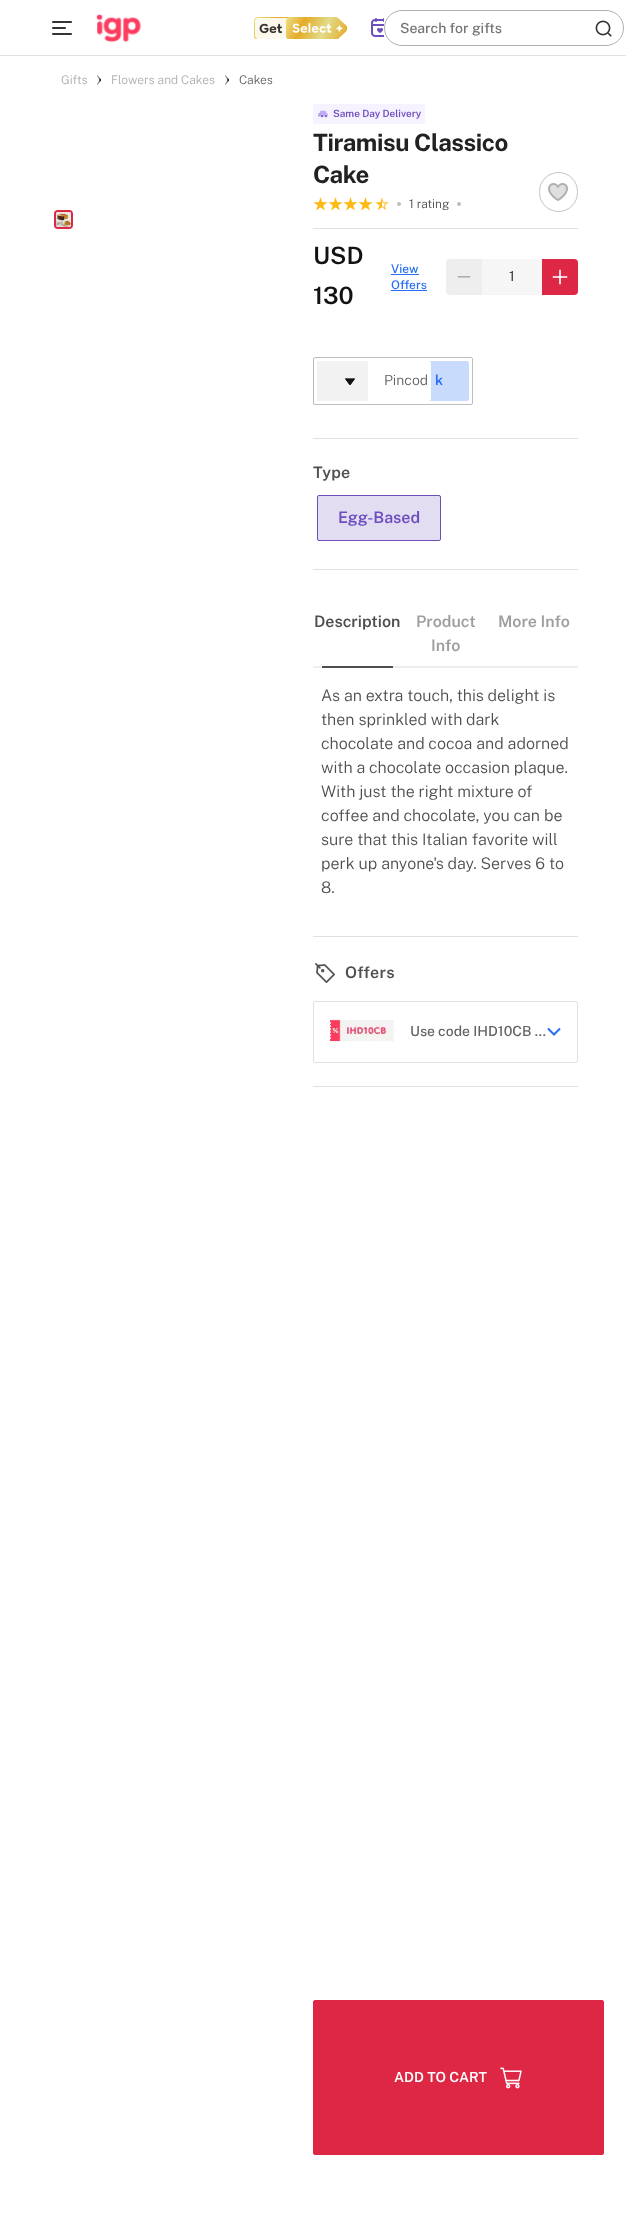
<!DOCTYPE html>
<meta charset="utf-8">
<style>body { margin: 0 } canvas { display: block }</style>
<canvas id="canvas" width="626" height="2222"></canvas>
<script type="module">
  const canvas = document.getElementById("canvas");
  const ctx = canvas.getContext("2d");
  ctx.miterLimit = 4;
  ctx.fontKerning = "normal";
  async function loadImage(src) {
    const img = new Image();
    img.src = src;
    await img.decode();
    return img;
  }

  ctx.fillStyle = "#ffffff";
  ctx.fillRect(0, 0, 626, 2222);
  ctx.drawImage(await loadImage("img1.png"), 52, 21, 20, 14);
  ctx.fillStyle = "#e2e2e2";
  ctx.fillRect(0, 55, 626, 1);
  ctx.drawImage(await loadImage("img2.png"), 96, 14, 46, 29);
  ctx.drawImage(await loadImage("img3.png"), 254, 17, 93, 22);
  ctx.drawImage(await loadImage("img4.png"), 371, 18, 13, 19);
  ctx.beginPath();
  ctx.roundRect(384.5, 10.5, 239, 35, 17.5);
  ctx.strokeStyle = "#afafaf";
  ctx.stroke();
  ctx.drawImage(await loadImage("img5.png"), 595, 20, 17, 17);
  ctx.font = "500 14px Public Sans";
  ctx.fillStyle = "#757575";
  ctx.fillText("Search for gifts", 400, 33);
  ctx.font = "300 12px Public Sans";
  ctx.fillStyle = "#afafaf";
  ctx.fillText("Gifts", 61, 84);
  ctx.drawImage(await loadImage("img6.png"), 97, 75, 4, 10);
  ctx.fillText("Flowers and Cakes", 111, 84);
  ctx.drawImage(await loadImage("img6.png"), 225, 75, 4, 10);
  ctx.fillStyle = "#636363";
  ctx.fillText("Cakes", 239, 84);
  ctx.beginPath();
  ctx.roundRect(55, 211, 17, 17, 3);
  ctx.strokeStyle = "#dd2745";
  ctx.lineWidth = 2;
  ctx.stroke();
  ctx.drawImage(await loadImage("img7.png"), 56, 212, 15, 15);
  ctx.fillStyle = "#f6f2ff";
  ctx.beginPath();
  ctx.roundRect(313, 104, 112, 20, 2);
  ctx.fill();
  ctx.drawImage(await loadImage("img8.png"), 318, 110, 10, 8);
  ctx.font = "600 10px Public Sans";
  ctx.fillStyle = "#6d4ebf";
  ctx.fillText("Same Day Delivery", 333, 117);
  ctx.letterSpacing = "-0.4px";
  ctx.font = "bold 24px Public Sans";
  ctx.fillStyle = "#222222";
  ctx.fillText("Tiramisu Classico", 313, 151);
  ctx.fillText("Cake", 313, 183);
  ctx.drawImage(await loadImage("img9.png"), 313, 197, 15, 14);
  ctx.drawImage(await loadImage("img9.png"), 328, 197, 15, 14);
  ctx.drawImage(await loadImage("img9.png"), 343, 197, 15, 14);
  ctx.drawImage(await loadImage("img9.png"), 358, 197, 15, 14);
  ctx.drawImage(await loadImage("img10.png"), 375, 197, 14, 13);
  ctx.fillStyle = "#bdbdbd";
  ctx.beginPath();
  ctx.arc(399, 204, 2, 0, Math.PI * 2);
  ctx.fill();
  ctx.letterSpacing = "0px";
  ctx.font = "300 12px Public Sans";
  ctx.fillStyle = "#4f4f4f";
  ctx.fillText("1 rating", 409, 208);
  ctx.fillStyle = "#bdbdbd";
  ctx.beginPath();
  ctx.arc(459, 204, 2, 0, Math.PI * 2);
  ctx.fill();
  ctx.drawImage(await loadImage("img11.png"), 548, 183, 20, 18);
  ctx.beginPath();
  ctx.roundRect(539.5, 172.5, 38, 39, 19);
  ctx.strokeStyle = "#c4c4c4";
  ctx.lineWidth = 1;
  ctx.stroke();
  ctx.fillStyle = "#e0e0e0";
  ctx.fillRect(313, 228, 265, 1);
  ctx.font = "600 24px Public Sans";
  ctx.fillStyle = "#121212";
  ctx.fillText("USD", 313, 264);
  ctx.fillText("130", 313, 304);
  ctx.font = "500 12px Public Sans";
  ctx.fillStyle = "#276ef1";
  ctx.fillText("View", 391, 273);
  ctx.fillRect(391, 274, 28, 1);
  ctx.fillText("Offers", 391, 289);
  ctx.fillRect(391, 290, 36, 1);
  ctx.fillStyle = "#eeeeee";
  ctx.beginPath();
  ctx.roundRect(446, 259, 36, 36, [4, 0, 0, 4]);
  ctx.fill();
  ctx.drawImage(await loadImage("img12.png"), 457, 276, 14, 2);
  ctx.fillStyle = "#f6f6f6";
  ctx.fillRect(482, 259, 60, 36);
  ctx.font = "300 14px Public Sans";
  ctx.fillStyle = "#222222";
  ctx.fillText("1", 509, 281);
  ctx.fillStyle = "#dd2745";
  ctx.beginPath();
  ctx.roundRect(542, 259, 36, 36, [0, 4, 4, 0]);
  ctx.fill();
  ctx.drawImage(await loadImage("img13.png"), 552, 269, 16, 16);
  ctx.fillStyle = "#e0e0e0";
  ctx.fillRect(313, 438, 265, 1);
  ctx.beginPath();
  ctx.roundRect(313.5, 357.5, 159, 47, 1.5);
  ctx.strokeStyle = "#bdbdbd";
  ctx.stroke();
  ctx.fillStyle = "#f2f2f2";
  ctx.fillRect(317, 361, 51, 40);
  ctx.drawImage(await loadImage("img14.png"), 345, 378, 10, 7);
  ctx.fillStyle = "#c9dbfc";
  ctx.beginPath();
  ctx.roundRect(375, 361, 94, 40, 2);
  ctx.fill();
  ctx.fillStyle = "#ffffff";
  ctx.beginPath();
  ctx.roundRect(368, 361, 63, 40, 2);
  ctx.fill();
  ctx.fillStyle = "#636363";
  ctx.fillText("Pincod", 384, 385);
  ctx.font = "600 14px Public Sans";
  ctx.fillStyle = "#276ef1";
  ctx.fillText("k", 435, 385);
  ctx.fillStyle = "#e0e0e0";
  ctx.fillRect(313, 569, 265, 1);
  ctx.letterSpacing = "0.25px";
  ctx.font = "600 16px Public Sans";
  ctx.fillStyle = "#4f4f4f";
  ctx.fillText("Type", 313, 478);
  ctx.fillStyle = "#e3ddf2";
  ctx.beginPath();
  ctx.roundRect(317.5, 495.5, 123, 45, 1.5);
  ctx.fill();
  ctx.strokeStyle = "#6d4ebf";
  ctx.stroke();
  ctx.letterSpacing = "0px";
  ctx.fillStyle = "#6d4ebf";
  ctx.fillText("Egg-Based", 338, 523);
  ctx.fillStyle = "#e0e0e0";
  ctx.fillRect(313, 936, 265, 1);
  ctx.fillStyle = "#4f4f4f";
  ctx.fillText("Description", 314, 627);
  ctx.fillStyle = "#eeeeee";
  ctx.fillRect(313, 666, 265, 2);
  ctx.fillStyle = "#4f4f4f";
  ctx.fillRect(322, 666, 71, 2);
  ctx.fillStyle = "#9e9e9e";
  ctx.fillText("Product", 416, 627);
  ctx.fillText("Info", 431, 651);
  ctx.fillText("More Info", 498, 627);
  ctx.font = "300 16px Public Sans";
  ctx.fillStyle = "#4f4f4f";
  ctx.fillText("As an extra touch, this delight is", 321, 701);
  ctx.fillText("then sprinkled with dark", 321, 725);
  ctx.fillText("chocolate and cocoa and adorned", 321, 749);
  ctx.fillText("with a chocolate occasion plaque.", 321, 773);
  ctx.fillText("With just the right mixture of", 321, 797);
  ctx.fillText("coffee and chocolate, you can be", 321, 821);
  ctx.fillText("sure that this Italian favorite will", 321, 845);
  ctx.fillText("perk up anyone's day. Serves 6 to", 321, 869);
  ctx.fillText("8.", 321, 893);
  ctx.fillStyle = "#e0e0e0";
  ctx.fillRect(313, 1086, 265, 1);
  ctx.drawImage(await loadImage("img15.png"), 315, 963, 20, 20);
  ctx.letterSpacing = "0.25px";
  ctx.font = "600 16px Public Sans";
  ctx.fillStyle = "#4f4f4f";
  ctx.fillText("Offers", 345, 978);
  ctx.beginPath();
  ctx.roundRect(313.5, 1001.5, 264, 61, 1.5);
  ctx.strokeStyle = "#e0e0e0";
  ctx.stroke();
  ctx.drawImage(await loadImage("img16.png"), 330, 1019, 64, 23);
  ctx.letterSpacing = "0px";
  ctx.font = "500 14px Public Sans";
  ctx.fillStyle = "#636363";
  ctx.fillText("Use code IHD10CB …", 410, 1036);
  ctx.beginPath();
  ctx.moveTo(548, 1028.5);
  ctx.lineTo(554, 1034.5);
  ctx.lineTo(560, 1028.5);
  ctx.strokeStyle = "#276ef1";
  ctx.lineWidth = 2;
  ctx.stroke();
  ctx.fillStyle = "#dd2745";
  ctx.beginPath();
  ctx.roundRect(313.5, 2000.5, 290, 154, 1.5);
  ctx.fill();
  ctx.strokeStyle = "#dd2745";
  ctx.lineWidth = 1;
  ctx.stroke();
  ctx.font = "600 14px Public Sans";
  ctx.fillStyle = "#ffffff";
  ctx.fillText("ADD TO CART", 394, 2082);
  ctx.drawImage(await loadImage("img17.png"), 500, 2067, 22, 22);
</script>
